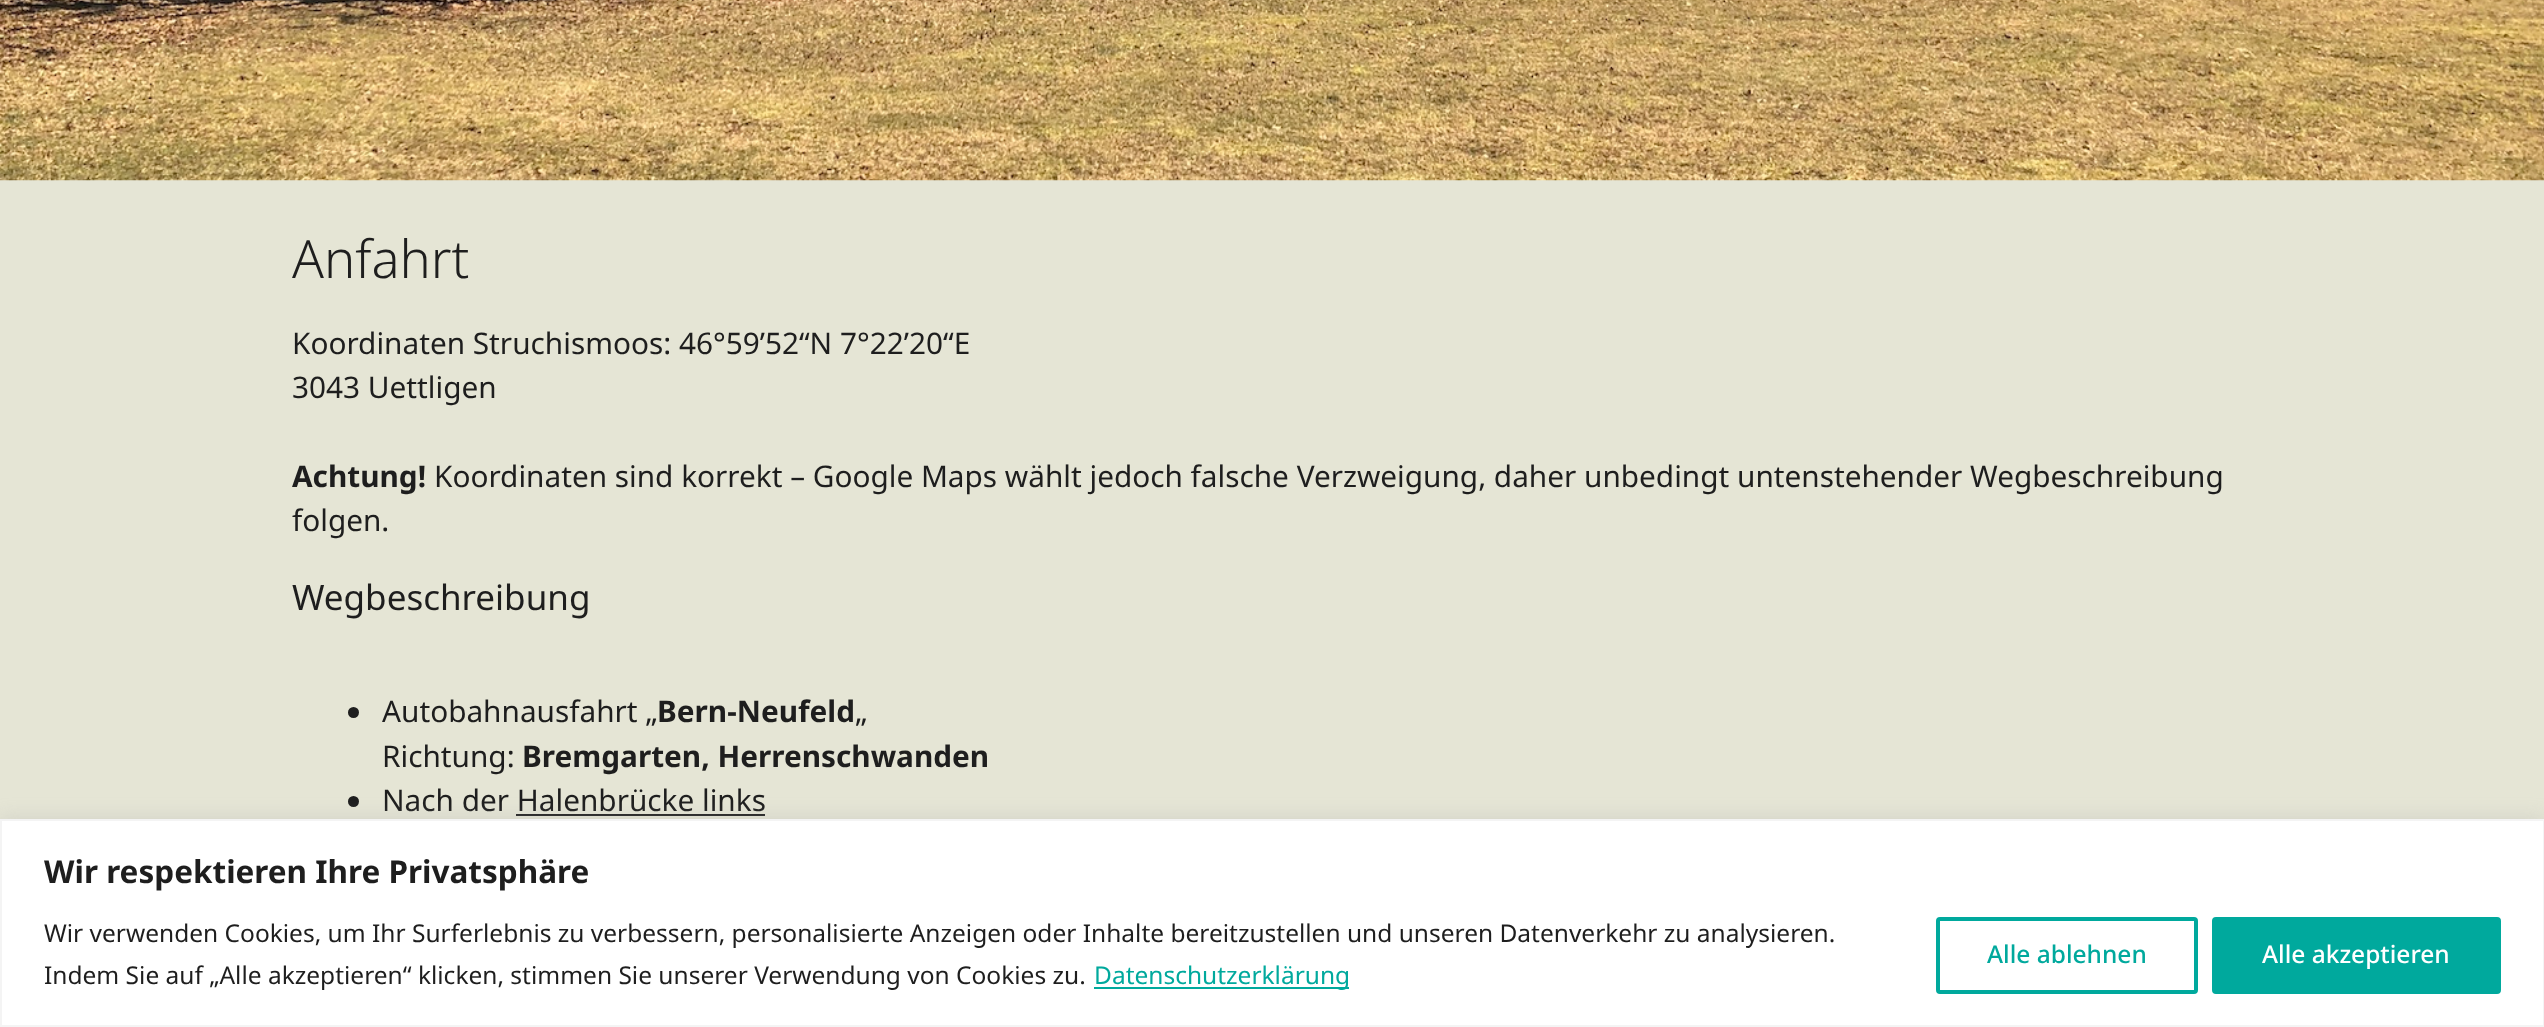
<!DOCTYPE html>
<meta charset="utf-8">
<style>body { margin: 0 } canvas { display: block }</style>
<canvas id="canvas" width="2544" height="1027"></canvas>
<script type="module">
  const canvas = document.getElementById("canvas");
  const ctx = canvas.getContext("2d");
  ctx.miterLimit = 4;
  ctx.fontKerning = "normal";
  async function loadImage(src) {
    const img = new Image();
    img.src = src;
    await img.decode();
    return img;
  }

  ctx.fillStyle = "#e5e5d5";
  ctx.fillRect(0, 0, 2544, 1027);
  ctx.drawImage(await loadImage("img1.png"), 0, 0, 2544, 181);
  ctx.font = "300 52.5px Noto Sans";
  ctx.fillStyle = "#1e1e1e";
  ctx.fillText("Anfahrt", 292, 278);
  ctx.font = "29.75px Noto Sans";
  ctx.fillText("Koordinaten Struchismoos: 46°59’52“N 7°22’20“E", 292, 354);
  ctx.fillText("3043 Uettligen", 292, 398);
  ctx.font = "bold 29.75px Noto Sans";
  ctx.fillText("Achtung!", 292, 487);
  ctx.font = "29.75px Noto Sans";
  ctx.fillText("Koordinaten sind korrekt – Google Maps wählt jedoch falsche Verzweigung, daher unbedingt untenstehender Wegbeschreibung", 434, 487);
  ctx.fillText("folgen.", 292, 531);
  ctx.font = "35px Noto Sans";
  ctx.fillText("Wegbeschreibung", 292, 610);
  ctx.beginPath();
  ctx.arc(353.5, 712.5, 5.5, 0, Math.PI * 2);
  ctx.fill();
  ctx.font = "29.75px Noto Sans";
  ctx.fillText("Autobahnausfahrt „", 382, 722);
  ctx.font = "bold 29.75px Noto Sans";
  ctx.fillText("Bern-Neufeld", 657, 722);
  ctx.font = "29.75px Noto Sans";
  ctx.fillText("„", 855, 722);
  ctx.fillText("Richtung:", 382, 767);
  ctx.font = "bold 29.75px Noto Sans";
  ctx.fillText("Bremgarten, Herrenschwanden", 522, 767);
  ctx.beginPath();
  ctx.arc(353.5, 801.5, 5.5, 0, Math.PI * 2);
  ctx.fill();
  ctx.font = "29.75px Noto Sans";
  ctx.fillText("Nach der Halenbrücke links", 382, 811);
  ctx.fillRect(516, 814, 249, 2);
  ctx.fillStyle = "rgba(172, 171, 171, 0.3)";
  ctx.filter = "blur(9px)";
  ctx.beginPath();
  ctx.rect(0, 817, 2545, 209);
  ctx.fill();
  ctx.filter = "none";
  ctx.fillStyle = "#ffffff";
  ctx.beginPath();
  ctx.rect(1, 820, 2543, 206);
  ctx.fill();
  ctx.strokeStyle = "#f4f4f4";
  ctx.lineWidth = 2;
  ctx.stroke();
  ctx.font = "bold 31.5px Noto Sans";
  ctx.fillStyle = "#1e1e1e";
  ctx.fillText("Wir respektieren Ihre Privatsphäre", 44, 883);
  ctx.font = "24.5px Noto Sans";
  ctx.fillText("Wir verwenden Cookies, um Ihr Surferlebnis zu verbessern, personalisierte Anzeigen oder Inhalte bereitzustellen und unseren Datenverkehr zu analysieren.", 44, 942);
  ctx.fillText("Indem Sie auf „Alle akzeptieren“ klicken, stimmen Sie unserer Verwendung von Cookies zu.", 44, 984);
  ctx.fillStyle = "#00a99d";
  ctx.fillRect(1094, 987, 255, 2);
  ctx.fillText("Datenschutzerklärung", 1094, 984);
  ctx.beginPath();
  ctx.roundRect(1938, 919, 258, 73, 2);
  ctx.strokeStyle = "#00a99d";
  ctx.lineWidth = 4;
  ctx.stroke();
  ctx.font = "500 24.5px Noto Sans";
  ctx.fillText("Alle ablehnen", 1987, 963);
  ctx.beginPath();
  ctx.roundRect(2214, 919, 285, 73, 2);
  ctx.fill();
  ctx.stroke();
  ctx.fillStyle = "#ffffff";
  ctx.fillText("Alle akzeptieren", 2262, 963);
</script>
